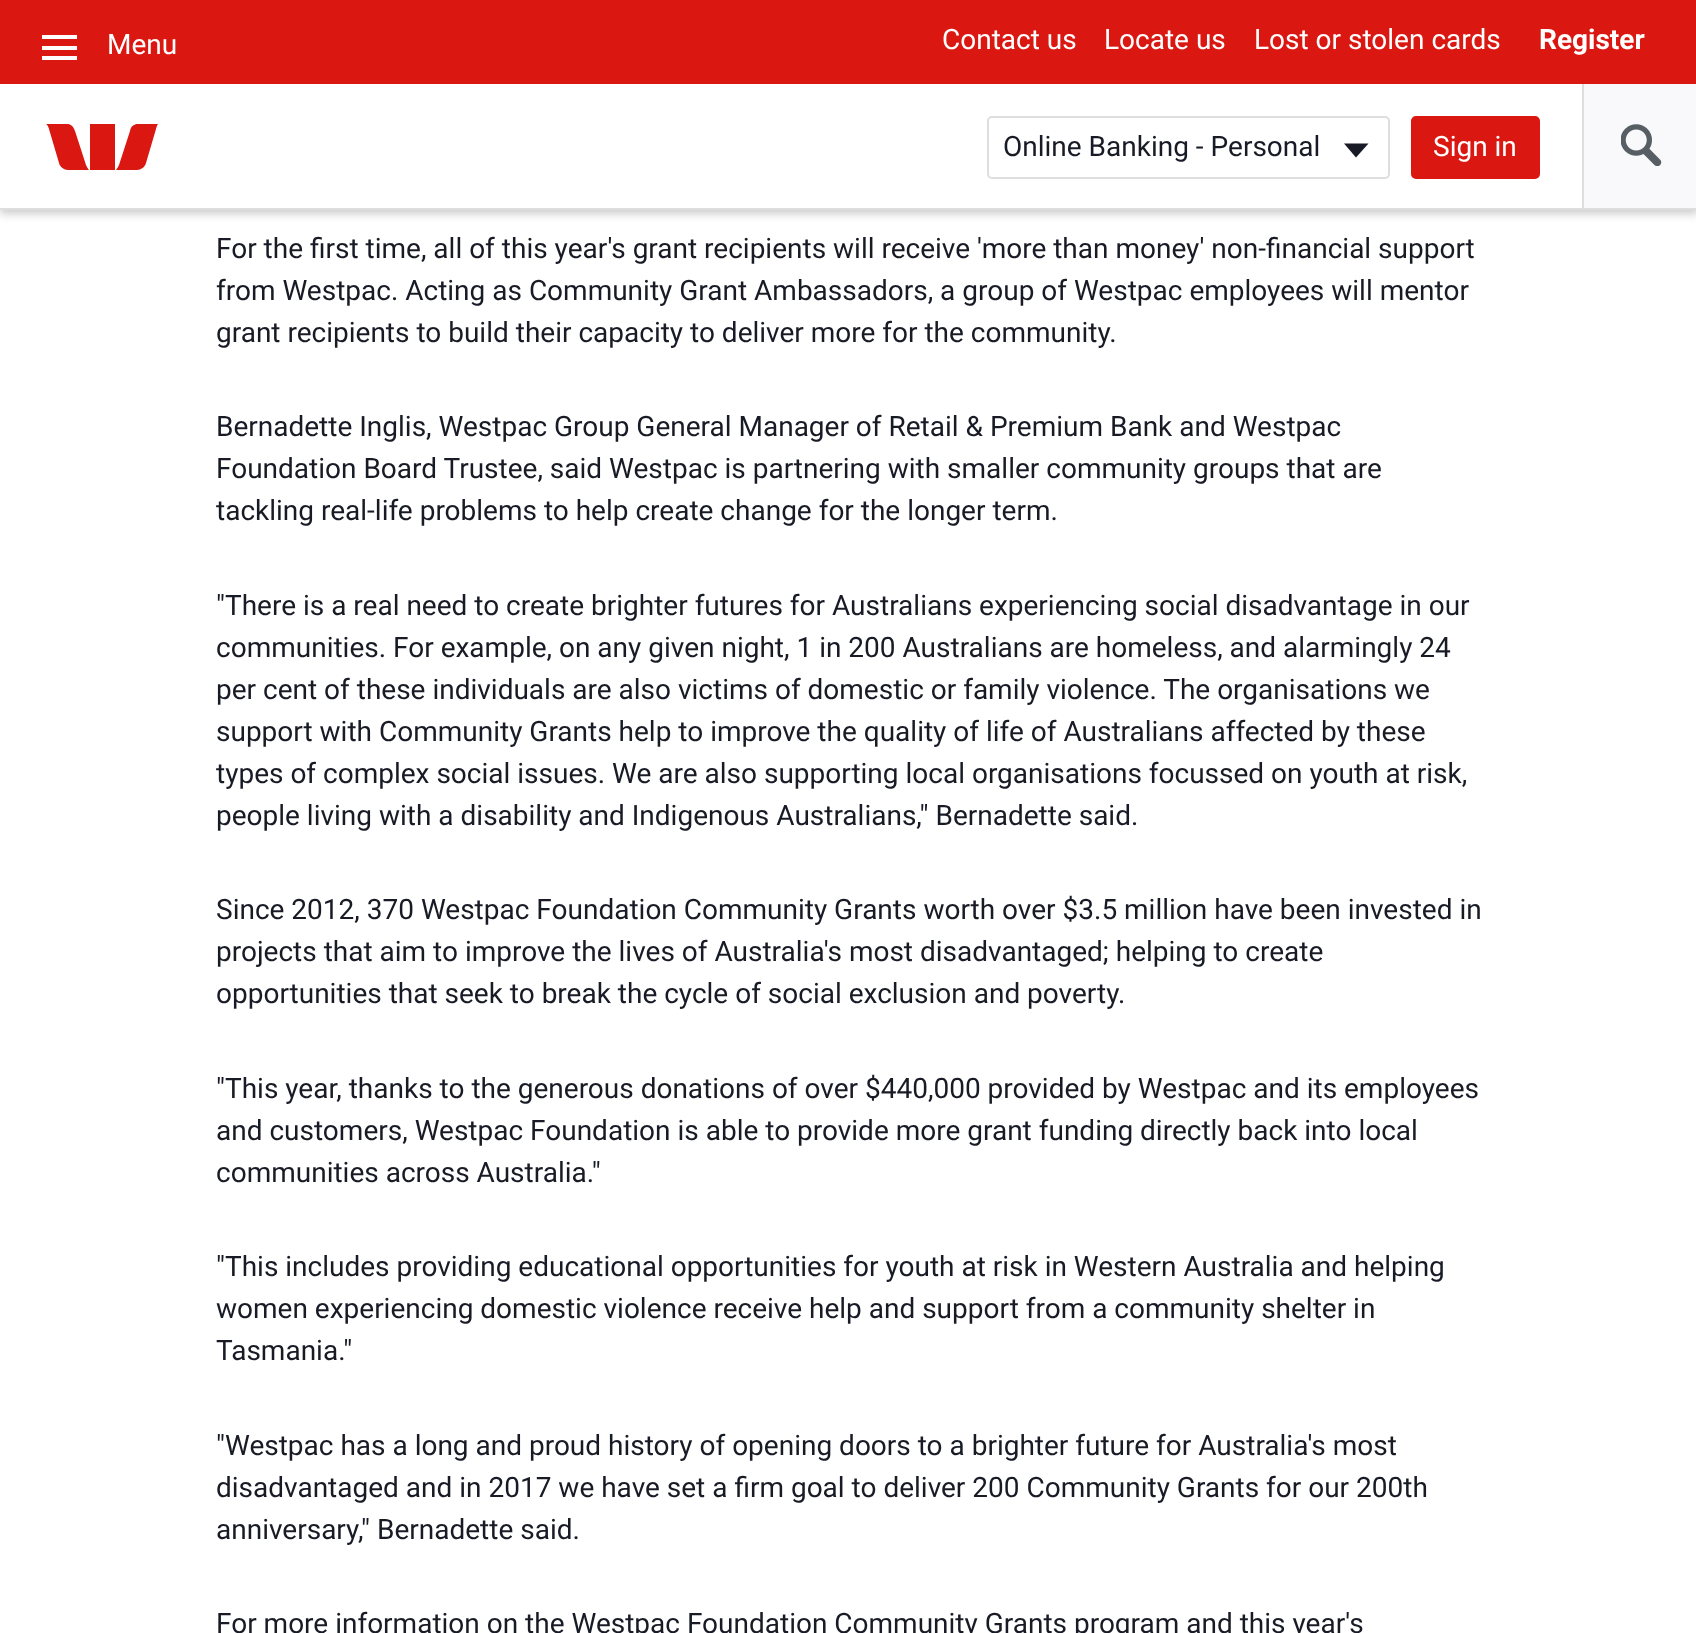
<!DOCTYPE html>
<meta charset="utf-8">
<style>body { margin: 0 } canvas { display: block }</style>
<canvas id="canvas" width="1696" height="1633"></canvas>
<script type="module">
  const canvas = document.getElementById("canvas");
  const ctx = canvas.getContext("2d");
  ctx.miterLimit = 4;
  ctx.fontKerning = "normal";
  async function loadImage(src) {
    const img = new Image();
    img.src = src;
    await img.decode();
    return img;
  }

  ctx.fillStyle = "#ffffff";
  ctx.fillRect(0, 0, 1696, 1633);
  ctx.fillStyle = "rgba(0, 0, 0, 0.2)";
  ctx.filter = "blur(4.5px)";
  ctx.beginPath();
  ctx.rect(0, 4, 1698, 210);
  ctx.fill();
  ctx.filter = "none";
  ctx.fillStyle = "#da1710";
  ctx.fillRect(0, 0, 1696, 84);
  ctx.fillStyle = "#ffffff";
  ctx.fillRect(42, 35, 35, 4);
  ctx.font = "28px Roboto";
  ctx.fillText("Menu", 107, 54);
  ctx.fillRect(42, 46, 35, 4);
  ctx.fillRect(42, 56, 35, 4);
  ctx.fillText("Contact us", 942, 49);
  ctx.fillText("Locate us", 1104, 49);
  ctx.fillText("Lost or stolen cards", 1254, 49);
  ctx.font = "bold 28px Roboto";
  ctx.fillText("Register", 1539, 49);
  ctx.fillRect(0, 84, 1582, 124);
  ctx.fillStyle = "#dedee1";
  ctx.fillRect(0, 208, 1696, 2);
  ctx.fillStyle = "#da1710";
  ctx.beginPath();
  ctx.moveTo(86, 165);
  ctx.lineTo(75, 131);
  ctx.bezierCurveTo(73, 126, 71, 124, 67, 124);
  ctx.lineTo(46, 124);
  ctx.bezierCurveTo(48, 125, 49, 129, 49, 129);
  ctx.lineTo(59, 163);
  ctx.bezierCurveTo(60, 167, 64, 170, 68, 170);
  ctx.lineTo(89, 170);
  ctx.bezierCurveTo(88, 169, 86, 165, 86, 165);
  ctx.fill();
  ctx.fillRect(90, 124, 25, 46);
  ctx.beginPath();
  ctx.moveTo(119, 165);
  ctx.lineTo(130, 131);
  ctx.bezierCurveTo(131, 126, 134, 124, 138, 124);
  ctx.lineTo(158, 124);
  ctx.bezierCurveTo(157, 125, 156, 129, 156, 129);
  ctx.lineTo(146, 163);
  ctx.bezierCurveTo(145, 167, 141, 170, 137, 170);
  ctx.lineTo(116, 170);
  ctx.bezierCurveTo(117, 169, 119, 165, 119, 165);
  ctx.fill();
  ctx.fillStyle = "#181b25";
  ctx.beginPath();
  ctx.moveTo(1344, 143.5);
  ctx.lineTo(1368.5, 143.5);
  ctx.lineTo(1356, 157.5);
  ctx.closePath();
  ctx.fill();
  ctx.beginPath();
  ctx.roundRect(988, 117, 401, 61, 4);
  ctx.strokeStyle = "#dedee1";
  ctx.lineWidth = 2;
  ctx.stroke();
  ctx.font = "28px Roboto";
  ctx.fillText("Online Banking - Personal", 1003, 156);
  ctx.fillStyle = "#da1710";
  ctx.beginPath();
  ctx.roundRect(1412, 117, 127, 61, 4);
  ctx.fill();
  ctx.strokeStyle = "#da1710";
  ctx.stroke();
  ctx.fillStyle = "#ffffff";
  ctx.fillText("Sign in", 1433, 156);
  ctx.fillStyle = "#f9f9fb";
  ctx.fillRect(1584, 84, 112, 124);
  ctx.fillStyle = "#dedee1";
  ctx.fillRect(1582, 84, 2, 126);
  ctx.drawImage(await loadImage("img1.png"), 1621, 124, 41, 42);
  ctx.fillStyle = "#181b25";
  ctx.fillText("For the first time, all of this year's grant recipients will receive 'more than money' non-financial support", 216, 258);
  ctx.fillText("from Westpac. Acting as Community Grant Ambassadors, a group of Westpac employees will mentor", 216, 300);
  ctx.fillText("grant recipients to build their capacity to deliver more for the community.", 216, 342);
  ctx.fillText("Bernadette Inglis, Westpac Group General Manager of Retail & Premium Bank and Westpac", 216, 436);
  ctx.fillText("Foundation Board Trustee, said Westpac is partnering with smaller community groups that are", 216, 478);
  ctx.fillText("tackling real-life problems to help create change for the longer term.", 216, 520);
  ctx.fillText("\"There is a real need to create brighter futures for Australians experiencing social disadvantage in our", 216, 615);
  ctx.fillText("communities. For example, on any given night, 1 in 200 Australians are homeless, and alarmingly 24", 216, 657);
  ctx.fillText("per cent of these individuals are also victims of domestic or family violence. The organisations we", 216, 699);
  ctx.fillText("support with Community Grants help to improve the quality of life of Australians affected by these", 216, 741);
  ctx.fillText("types of complex social issues. We are also supporting local organisations focussed on youth at risk,", 216, 783);
  ctx.fillText("people living with a disability and Indigenous Australians,\" Bernadette said.", 216, 825);
  ctx.fillText("Since 2012, 370 Westpac Foundation Community Grants worth over $3.5 million have been invested in", 216, 919);
  ctx.fillText("projects that aim to improve the lives of Australia's most disadvantaged; helping to create", 216, 961);
  ctx.fillText("opportunities that seek to break the cycle of social exclusion and poverty.", 216, 1003);
  ctx.fillText("\"This year, thanks to the generous donations of over $440,000 provided by Westpac and its employees", 216, 1098);
  ctx.fillText("and customers, Westpac Foundation is able to provide more grant funding directly back into local", 216, 1140);
  ctx.fillText("communities across Australia.\"", 216, 1182);
  ctx.fillText("\"This includes providing educational opportunities for youth at risk in Western Australia and helping", 216, 1276);
  ctx.fillText("women experiencing domestic violence receive help and support from a community shelter in", 216, 1318);
  ctx.fillText("Tasmania.\"", 216, 1360);
  ctx.fillText("\"Westpac has a long and proud history of opening doors to a brighter future for Australia's most", 216, 1455);
  ctx.fillText("disadvantaged and in 2017 we have set a firm goal to deliver 200 Community Grants for our 200th", 216, 1497);
  ctx.fillText("anniversary,\" Bernadette said.", 216, 1539);
  ctx.fillText("For more information on the Westpac Foundation Community Grants program and this year's", 216, 1633);
</script>
